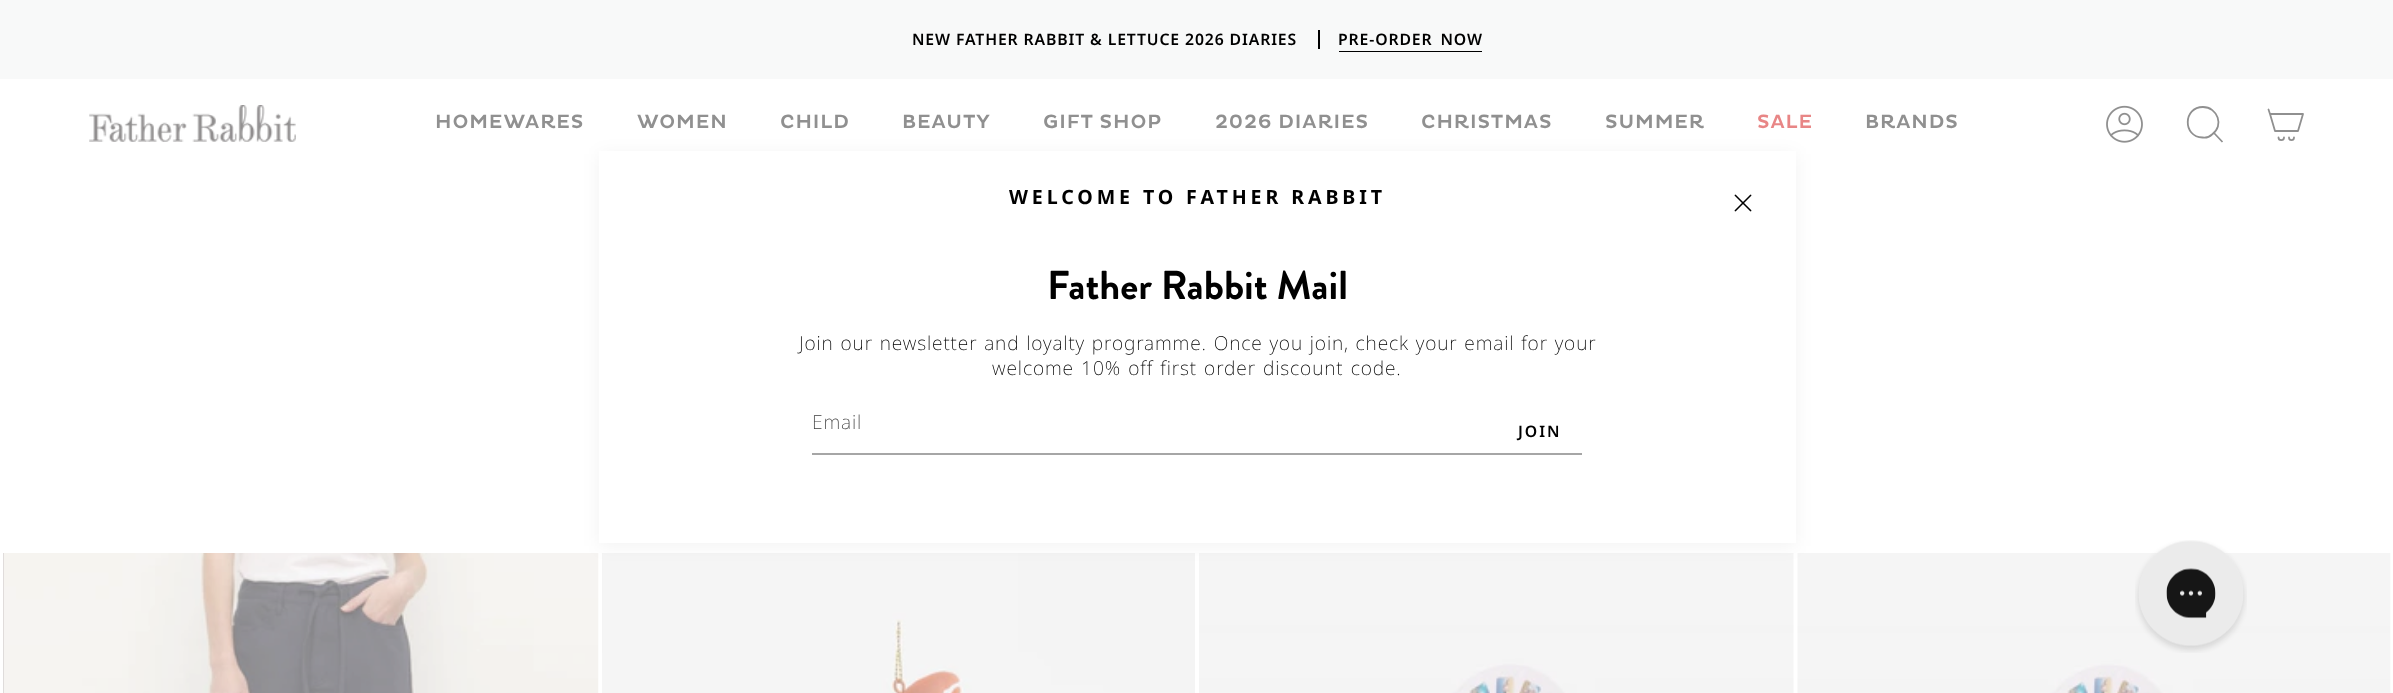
<!DOCTYPE html>
<meta charset="utf-8">
<style>body { margin: 0 } canvas { display: block }</style>
<canvas id="canvas" width="2393" height="693"></canvas>
<script type="module">
  const canvas = document.getElementById("canvas");
  const ctx = canvas.getContext("2d");
  ctx.miterLimit = 4;
  ctx.fontKerning = "normal";
  async function loadImage(src) {
    const img = new Image();
    img.src = src;
    await img.decode();
    return img;
  }

  ctx.fillStyle = "#ffffff";
  ctx.fillRect(0, 0, 2393, 693);
  ctx.fillStyle = "#f8f9f9";
  ctx.fillRect(0, 0, 2393, 79);
  ctx.letterSpacing = "0.88px";
  ctx.font = "600 15.75px Noto Sans";
  ctx.fillStyle = "#000000";
  ctx.fillText("NEW FATHER RABBIT & LETTUCE 2026 DIARIES", 912, 45);
  ctx.fillRect(1318, 30, 2, 19);
  ctx.wordSpacing = "3px";
  ctx.fillText("PRE-ORDER NOW", 1338, 45);
  ctx.beginPath();
  ctx.moveTo(1339, 51);
  ctx.lineTo(1339, 52);
  ctx.lineTo(1482, 52);
  ctx.lineTo(1482, 53);
  ctx.lineTo(1482, 51);
  ctx.closePath();
  ctx.fill();
  ctx.drawImage(await loadImage("img1.png"), 89, 105, 207, 37);
  ctx.wordSpacing = "0px";
  ctx.font = "500 19.6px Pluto";
  ctx.fillStyle = "#909090";
  ctx.fillText("HOMEWARES", 435, 128);
  ctx.fillText("WOMEN", 637, 128);
  ctx.fillText("CHILD", 780, 128);
  ctx.fillText("BEAUTY", 902, 128);
  ctx.fillText("GIFT SHOP", 1043, 128);
  ctx.fillText("2026 DIARIES", 1215, 128);
  ctx.fillText("CHRISTMAS", 1421, 128);
  ctx.fillText("SUMMER", 1605, 128);
  ctx.fillStyle = "#e88686";
  ctx.fillText("SALE", 1757, 128);
  ctx.fillStyle = "#909090";
  ctx.fillText("BRANDS", 1865, 128);
  ctx.drawImage(await loadImage("img2.png"), 2106, 105, 37, 38);
  ctx.beginPath();
  ctx.moveTo(2203, 107);
  ctx.bezierCurveTo(2217.5, 107, 2224.5, 126, 2212, 134.5);
  ctx.bezierCurveTo(2209.5, 137, 2206, 138, 2202.5, 137.5);
  ctx.bezierCurveTo(2182.5, 137, 2183, 107, 2203, 107);
  ctx.closePath();
  ctx.moveTo(2214, 133);
  ctx.lineTo(2222.5, 142);
  ctx.strokeStyle = "#909090";
  ctx.lineWidth = 1.8;
  ctx.stroke();
  ctx.beginPath();
  ctx.moveTo(2270, 114);
  ctx.lineTo(2303, 114);
  ctx.lineTo(2298, 131);
  ctx.lineTo(2275, 131);
  ctx.closePath();
  ctx.moveTo(2270, 114);
  ctx.lineTo(2268.5, 109.5);
  ctx.moveTo(2284, 137.5);
  ctx.bezierCurveTo(2284, 141, 2278.5, 141, 2278.5, 137.5);
  ctx.moveTo(2294, 137.5);
  ctx.bezierCurveTo(2294, 141, 2289, 141, 2289, 137.5);
  ctx.lineCap = "round";
  ctx.lineJoin = "round";
  ctx.stroke();
  ctx.fillStyle = "#d8d5d4";
  ctx.fillRect(3, 553, 1, 140);
  ctx.drawImage(await loadImage("img3.png"), 3, 553, 596, 140);
  ctx.drawImage(await loadImage("img4.png"), 602, 553, 593, 140);
  ctx.drawImage(await loadImage("img5.png"), 1199, 553, 595, 140);
  ctx.drawImage(await loadImage("img6.png"), 1797, 553, 594, 140);
  ctx.fillStyle = "rgba(0, 0, 0, 0.05)";
  ctx.filter = "blur(9px)";
  ctx.beginPath();
  ctx.rect(599, 154, 1197, 392);
  ctx.fill();
  ctx.filter = "none";
  ctx.fillStyle = "#ffffff";
  ctx.fillRect(599, 151, 1197, 392);
  ctx.letterSpacing = "3.9px";
  ctx.font = "bold 19.6px Noto Sans";
  ctx.fillStyle = "#000000";
  ctx.fillText("WELCOME TO FATHER RABBIT", 1009, 204);
  ctx.letterSpacing = "0px";
  ctx.font = "bold 40.25px Brandon Grotesque";
  ctx.fillText("Father Rabbit Mail", 1047, 299);
  ctx.letterSpacing = "0.88px";
  ctx.wordSpacing = "0.9px";
  ctx.font = "200 19.25px Noto Sans";
  ctx.fillText("Join our newsletter and loyalty programme. Once you join, check your email for your", 799, 350);
  ctx.wordSpacing = "1.25px";
  ctx.fillText("welcome 10% off first order discount code.", 992, 375);
  ctx.fillStyle = "#a6a6a6";
  ctx.fillRect(812, 453, 770, 2);
  ctx.wordSpacing = "0px";
  ctx.fillStyle = "#404040";
  ctx.fillText("Email", 812, 429);
  ctx.letterSpacing = "2px";
  ctx.font = "600 15.75px Noto Sans";
  ctx.fillStyle = "#000000";
  ctx.fillText("JOIN", 1518, 437);
  ctx.drawImage(await loadImage("img7.png"), 1734, 194, 18, 18);
  ctx.drawImage(await loadImage("img8.png"), 2135, 540, 112, 113);
</script>
